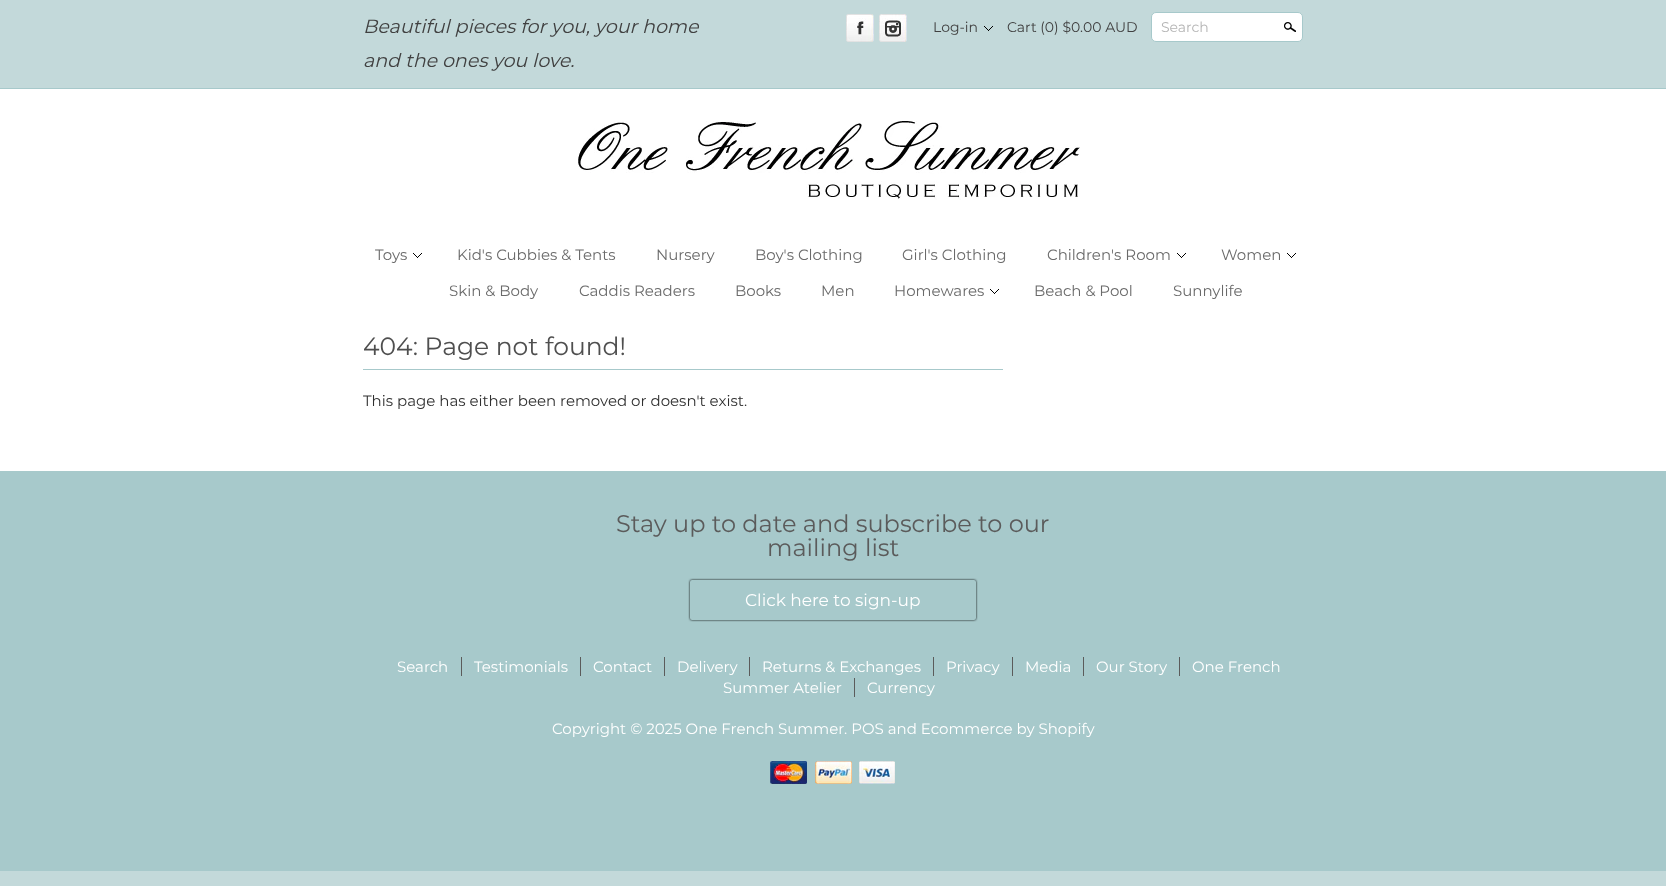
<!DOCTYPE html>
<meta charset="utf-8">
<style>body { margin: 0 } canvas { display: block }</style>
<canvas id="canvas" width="1666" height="886"></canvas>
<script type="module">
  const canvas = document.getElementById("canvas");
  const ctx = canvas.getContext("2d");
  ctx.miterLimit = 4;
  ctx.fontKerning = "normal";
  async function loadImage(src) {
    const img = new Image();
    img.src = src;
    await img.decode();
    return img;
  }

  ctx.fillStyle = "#c3d9da";
  ctx.fillRect(0, 0, 1666, 886);
  ctx.font = "italic 100 19px Montserrat";
  ctx.fillStyle = "#404040";
  ctx.fillText("Beautiful pieces for you, your home", 363, 33);
  ctx.fillText("and the ones you love.", 363, 67);
  ctx.drawImage(await loadImage("img1.png"), 846, 14, 28, 28);
  ctx.drawImage(await loadImage("img2.png"), 879, 14, 28, 28);
  ctx.drawImage(await loadImage("img3.png"), 984, 26, 9, 5);
  ctx.font = "100 14px Montserrat";
  ctx.fillText("Log-in", 933, 32);
  ctx.fillText("Cart (0) $0.00 AUD", 1007, 32);
  ctx.fillStyle = "#ffffff";
  ctx.beginPath();
  ctx.roundRect(1151.5, 12.5, 151, 29, 4.5);
  ctx.fill();
  ctx.strokeStyle = "#a7c9cb";
  ctx.stroke();
  ctx.fillStyle = "#b5b5b5";
  ctx.fillText("Search", 1161, 32);
  ctx.drawImage(await loadImage("img4.png"), 1284, 22, 12, 10);
  ctx.fillStyle = "#ffffff";
  ctx.fillRect(0, 89, 1666, 382);
  ctx.fillStyle = "#a7c9cb";
  ctx.fillRect(0, 88, 1666, 1);
  ctx.drawImage(await loadImage("img5.png"), 578, 121, 502, 79);
  ctx.drawImage(await loadImage("img6.png"), 413, 253, 9, 5);
  ctx.font = "100 15px Montserrat";
  ctx.fillStyle = "#6a6a6a";
  ctx.fillText("Toys", 375, 260);
  ctx.fillText("Kid's Cubbies & Tents", 457, 260);
  ctx.fillText("Nursery", 656, 260);
  ctx.fillText("Boy's Clothing", 755, 260);
  ctx.fillText("Girl's Clothing", 902, 260);
  ctx.drawImage(await loadImage("img6.png"), 1177, 253, 9, 5);
  ctx.fillText("Children's Room", 1047, 260);
  ctx.drawImage(await loadImage("img6.png"), 1287, 253, 9, 5);
  ctx.fillText("Women", 1221, 260);
  ctx.fillText("Skin & Body", 449, 296);
  ctx.fillText("Caddis Readers", 579, 296);
  ctx.fillText("Books", 735, 296);
  ctx.fillText("Men", 821, 296);
  ctx.drawImage(await loadImage("img6.png"), 990, 289, 9, 5);
  ctx.fillText("Homewares", 894, 296);
  ctx.fillText("Beach & Pool", 1034, 296);
  ctx.fillText("Sunnylife", 1173, 296);
  ctx.fillStyle = "#a7c9cb";
  ctx.fillRect(363, 369, 640, 1);
  ctx.font = "100 25px Montserrat";
  ctx.fillStyle = "#4f4f4f";
  ctx.fillText("404: Page not found!", 363, 355);
  ctx.font = "100 15px Montserrat";
  ctx.fillStyle = "#303030";
  ctx.fillText("This page has either been removed or doesn't exist.", 363, 406);
  ctx.fillStyle = "#a7c9cb";
  ctx.fillRect(0, 471, 1666, 400);
  ctx.font = "100 24px Montserrat";
  ctx.fillStyle = "#5b5b5b";
  ctx.fillText("Stay up to date and subscribe to our", 616, 532);
  ctx.fillText("mailing list", 767, 556);
  ctx.fillStyle = "#000000";
  ctx.filter = "blur(1px)";
  ctx.beginPath();
  ctx.roundRect(690, 580, 286, 40, 2);
  ctx.fill();
  ctx.filter = "none";
  ctx.fillStyle = "#a7c9cb";
  ctx.beginPath();
  ctx.roundRect(690, 580, 286, 40, 2);
  ctx.fill();
  ctx.font = "100 17px Montserrat";
  ctx.fillStyle = "#ffffff";
  ctx.fillText("Click here to sign-up", 745, 606);
  ctx.font = "100 15px Montserrat";
  ctx.fillText("Search", 397, 672);
  ctx.fillText("Testimonials", 474, 672);
  ctx.fillStyle = "#5b5b5b";
  ctx.fillRect(461, 657, 1, 19);
  ctx.fillStyle = "#ffffff";
  ctx.fillText("Contact", 593, 672);
  ctx.fillStyle = "#5b5b5b";
  ctx.fillRect(580, 657, 1, 19);
  ctx.fillStyle = "#ffffff";
  ctx.fillText("Delivery", 677, 672);
  ctx.fillStyle = "#5b5b5b";
  ctx.fillRect(664, 657, 1, 19);
  ctx.fillStyle = "#ffffff";
  ctx.fillText("Returns & Exchanges", 762, 672);
  ctx.fillStyle = "#5b5b5b";
  ctx.fillRect(749, 657, 1, 19);
  ctx.fillStyle = "#ffffff";
  ctx.fillText("Privacy", 946, 672);
  ctx.fillStyle = "#5b5b5b";
  ctx.fillRect(933, 657, 1, 19);
  ctx.fillStyle = "#ffffff";
  ctx.fillText("Media", 1025, 672);
  ctx.fillStyle = "#5b5b5b";
  ctx.fillRect(1012, 657, 1, 19);
  ctx.fillStyle = "#ffffff";
  ctx.fillText("Our Story", 1096, 672);
  ctx.fillStyle = "#5b5b5b";
  ctx.fillRect(1083, 657, 1, 19);
  ctx.fillStyle = "#ffffff";
  ctx.fillText("One French", 1192, 672);
  ctx.fillStyle = "#5b5b5b";
  ctx.fillRect(1179, 657, 1, 19);
  ctx.fillStyle = "#ffffff";
  ctx.fillText("Summer Atelier", 723, 693);
  ctx.fillText("Currency", 867, 693);
  ctx.fillStyle = "#5b5b5b";
  ctx.fillRect(854, 678, 1, 19);
  ctx.fillStyle = "#ffffff";
  ctx.fillText("Copyright © 2025 One French Summer. POS and Ecommerce by Shopify", 552, 734);
  ctx.drawImage(await loadImage("img7.png"), 770, 761, 37, 23);
  ctx.drawImage(await loadImage("img8.png"), 815, 761, 37, 23);
  ctx.drawImage(await loadImage("img9.png"), 859, 761, 36, 23);
</script>
